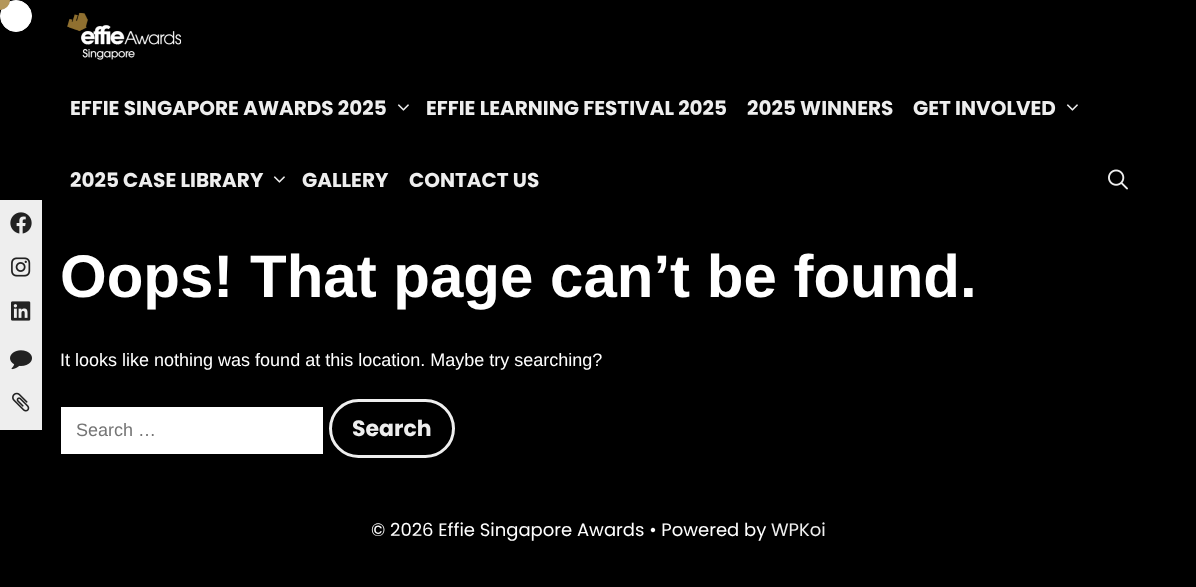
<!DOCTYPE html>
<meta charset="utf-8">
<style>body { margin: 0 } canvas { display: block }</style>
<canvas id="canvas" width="1196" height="587"></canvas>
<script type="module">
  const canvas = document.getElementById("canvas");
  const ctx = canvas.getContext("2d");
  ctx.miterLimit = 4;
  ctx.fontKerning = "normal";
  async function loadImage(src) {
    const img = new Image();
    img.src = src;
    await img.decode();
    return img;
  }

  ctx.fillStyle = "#000000";
  ctx.fillRect(0, 0, 1196, 587);
  ctx.fillStyle = "#ffffff";
  ctx.beginPath();
  ctx.arc(16, 16, 15.5, 0, Math.PI * 2);
  ctx.fill();
  ctx.strokeStyle = "#ffffff";
  ctx.stroke();
  ctx.fillStyle = "#b4975a";
  ctx.beginPath();
  ctx.arc(0, 0, 10, 0, Math.PI * 2);
  ctx.fill();
  ctx.drawImage(await loadImage("img1.png"), 67, 12, 115, 48);
  ctx.font = "bold 20px Poppins";
  ctx.fillStyle = "#eeeeee";
  ctx.fillText("EFFIE SINGAPORE AWARDS 2025", 70, 115);
  ctx.drawImage(await loadImage("img2.png"), 397, 104, 12, 7);
  ctx.fillText("EFFIE LEARNING FESTIVAL 2025", 426, 115);
  ctx.fillText("2025 WINNERS", 747, 115);
  ctx.fillText("GET INVOLVED", 913, 115);
  ctx.drawImage(await loadImage("img2.png"), 1066, 104, 12, 7);
  ctx.fillText("2025 CASE LIBRARY", 70, 187);
  ctx.drawImage(await loadImage("img2.png"), 273, 176, 12, 7);
  ctx.fillText("GALLERY", 302, 187);
  ctx.fillText("CONTACT US", 409, 187);
  ctx.drawImage(await loadImage("img3.png"), 1108, 169, 20, 21);
  ctx.fillRect(0, 200, 42, 230);
  ctx.drawImage(await loadImage("img4.png"), 10, 212, 22, 22);
  ctx.drawImage(await loadImage("img5.png"), 11, 257, 20, 20);
  ctx.drawImage(await loadImage("img6.png"), 11, 301, 20, 20);
  ctx.drawImage(await loadImage("img7.png"), 10, 350, 22, 20);
  ctx.drawImage(await loadImage("img8.png"), 12, 392, 18, 20);
  ctx.font = "bold 60px Liberation Sans";
  ctx.fillStyle = "#ffffff";
  ctx.fillText("Oops! That page can’t be found.", 60, 297);
  ctx.font = "18px Liberation Sans";
  ctx.fillText("It looks like nothing was found at this location. Maybe try searching?", 60, 366);
  ctx.fillRect(61, 407, 262, 47);
  ctx.fillStyle = "#757575";
  ctx.fillText("Search …", 76, 436);
  ctx.beginPath();
  ctx.roundRect(330.5, 400.5, 123, 56, 28);
  ctx.strokeStyle = "#eeeeee";
  ctx.lineWidth = 3;
  ctx.stroke();
  ctx.font = "bold 22px Poppins";
  ctx.fillStyle = "#eeeeee";
  ctx.fillText("Search", 352, 436);
  ctx.font = "18px Poppins";
  ctx.fillStyle = "#ffffff";
  ctx.fillText("© 2026 Effie Singapore Awards • Powered by", 371, 536);
  ctx.fillStyle = "#eeeeee";
  ctx.fillText("WPKoi", 771, 536);
</script>
